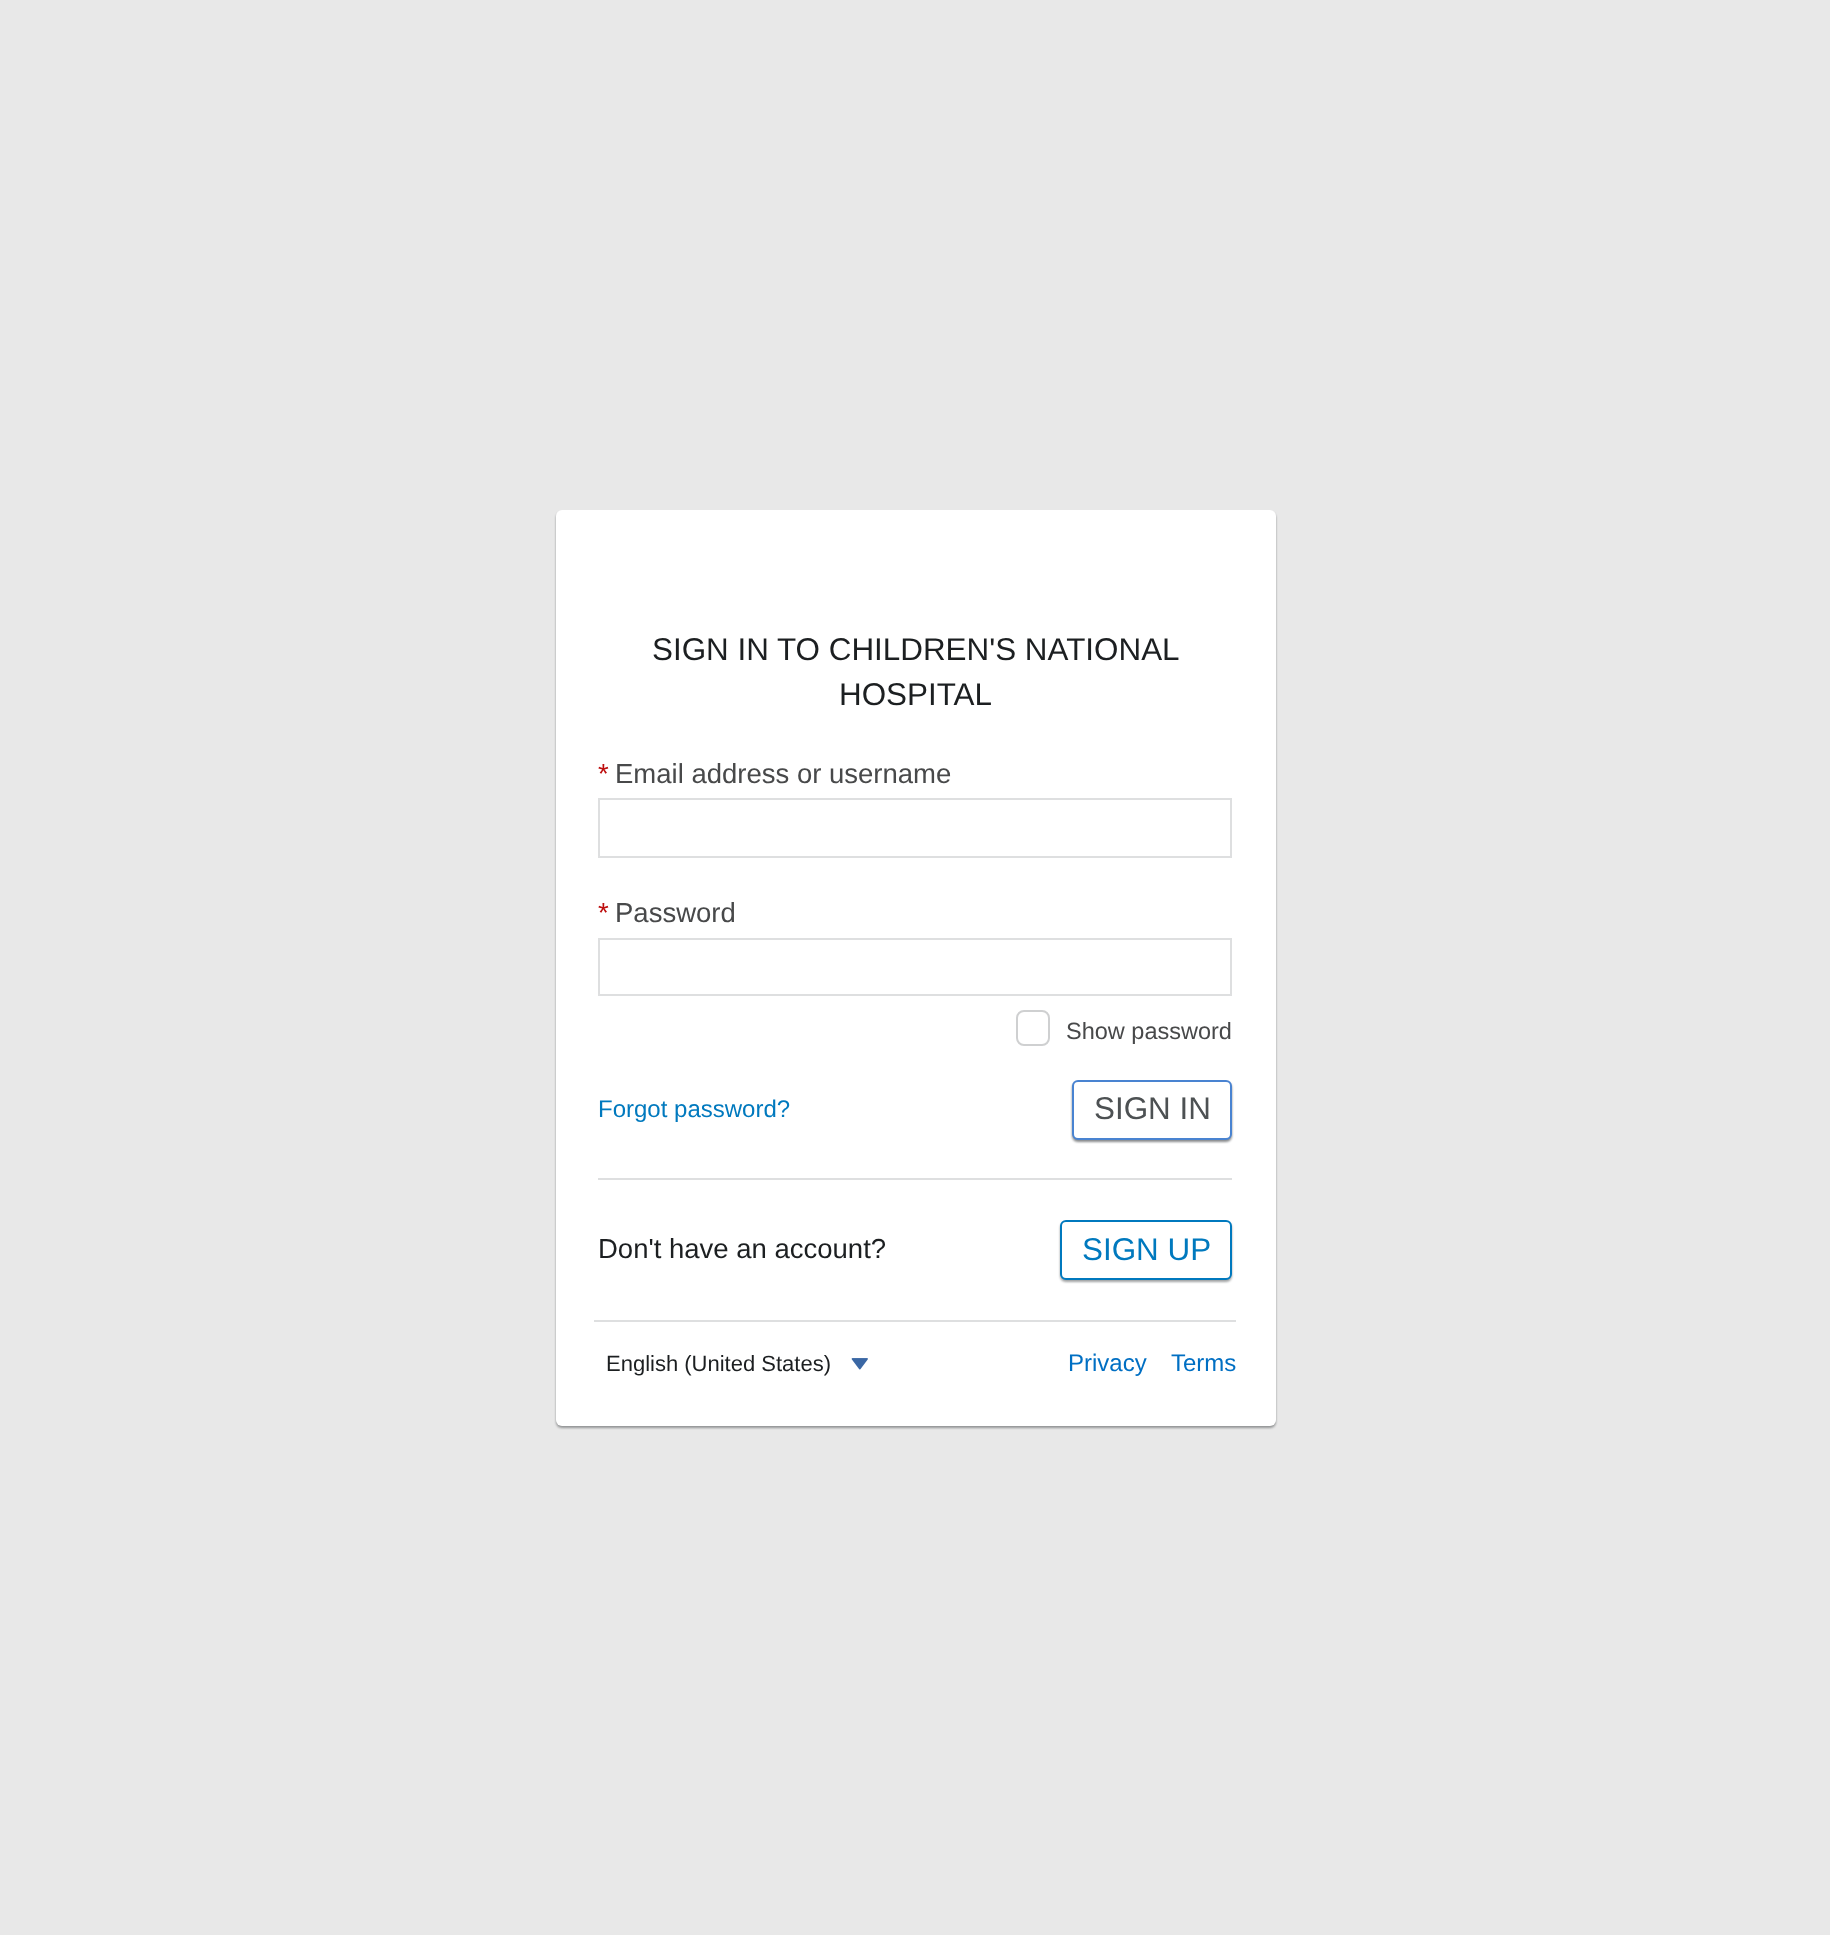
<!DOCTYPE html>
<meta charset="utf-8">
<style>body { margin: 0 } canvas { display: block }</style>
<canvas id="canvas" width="1830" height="1935"></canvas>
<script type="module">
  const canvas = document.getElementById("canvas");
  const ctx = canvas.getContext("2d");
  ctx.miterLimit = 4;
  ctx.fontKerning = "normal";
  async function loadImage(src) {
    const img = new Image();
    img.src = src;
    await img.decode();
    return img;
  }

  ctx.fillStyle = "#e8e8e8";
  ctx.fillRect(0, 0, 1830, 1935);
  ctx.fillStyle = "rgba(17, 22, 25, 0.4)";
  ctx.filter = "blur(1px)";
  ctx.beginPath();
  ctx.roundRect(556, 512, 720, 916, 6);
  ctx.fill();
  ctx.filter = "none";
  ctx.fillStyle = "#ffffff";
  ctx.beginPath();
  ctx.roundRect(556, 510, 720, 916, 6);
  ctx.fill();
  ctx.font = "31.4px Liberation Sans";
  ctx.fillStyle = "#1c1f21";
  ctx.fillText("SIGN IN TO CHILDREN'S NATIONAL", 652, 660);
  ctx.fillText("HOSPITAL", 839, 705);
  ctx.font = "27.5px Liberation Sans";
  ctx.fillStyle = "#bd0e0e";
  ctx.fillText("*", 598, 783);
  ctx.fillStyle = "#48494a";
  ctx.fillText("Email address or username", 615, 783);
  ctx.strokeStyle = "#dedfe0";
  ctx.lineWidth = 2;
  ctx.strokeRect(599, 799, 632, 58);
  ctx.fillStyle = "#bd0e0e";
  ctx.fillText("*", 598, 922);
  ctx.fillStyle = "#48494a";
  ctx.fillText("Password", 615, 922);
  ctx.strokeRect(599, 939, 632, 56);
  ctx.beginPath();
  ctx.roundRect(1017, 1011, 32, 34, 7);
  ctx.strokeStyle = "#cfd0d1";
  ctx.stroke();
  ctx.font = "23.5px Liberation Sans";
  ctx.fillText("Show password", 1066, 1039);
  ctx.font = "24px Liberation Sans";
  ctx.fillStyle = "#0079be";
  ctx.fillText("Forgot password?", 598, 1117);
  ctx.fillStyle = "rgba(17, 22, 25, 0.5)";
  ctx.filter = "blur(1px)";
  ctx.beginPath();
  ctx.roundRect(1072, 1082, 160, 60, 6);
  ctx.fill();
  ctx.filter = "none";
  ctx.fillStyle = "#ffffff";
  ctx.beginPath();
  ctx.roundRect(1073, 1081, 158, 58, 5);
  ctx.fill();
  ctx.strokeStyle = "#4983d1";
  ctx.stroke();
  ctx.font = "31.4px Liberation Sans";
  ctx.fillStyle = "#4d5153";
  ctx.fillText("SIGN IN", 1094, 1119);
  ctx.fillStyle = "#dedfe0";
  ctx.fillRect(598, 1178, 634, 2);
  ctx.font = "27.5px Liberation Sans";
  ctx.fillStyle = "#1c1f21";
  ctx.fillText("Don't have an account?", 598, 1258);
  ctx.fillStyle = "rgba(17, 22, 25, 0.4)";
  ctx.filter = "blur(1px)";
  ctx.beginPath();
  ctx.roundRect(1060, 1222, 172, 60, 6);
  ctx.fill();
  ctx.filter = "none";
  ctx.fillStyle = "#ffffff";
  ctx.beginPath();
  ctx.roundRect(1061, 1221, 170, 58, 5);
  ctx.fill();
  ctx.strokeStyle = "#0079be";
  ctx.stroke();
  ctx.font = "31.4px Liberation Sans";
  ctx.fillStyle = "#0079be";
  ctx.fillText("SIGN UP", 1082, 1260);
  ctx.fillStyle = "#dedfe0";
  ctx.fillRect(594, 1320, 642, 2);
  ctx.font = "22px Liberation Sans";
  ctx.fillStyle = "#1c1f21";
  ctx.fillText("English (United States)", 606, 1371);
  ctx.drawImage(await loadImage("img1.png"), 851, 1358, 17, 12);
  ctx.font = "24px Liberation Sans";
  ctx.fillStyle = "#006fc3";
  ctx.fillText("Privacy", 1068, 1371);
  ctx.fillText("Terms", 1171, 1371);
</script>
